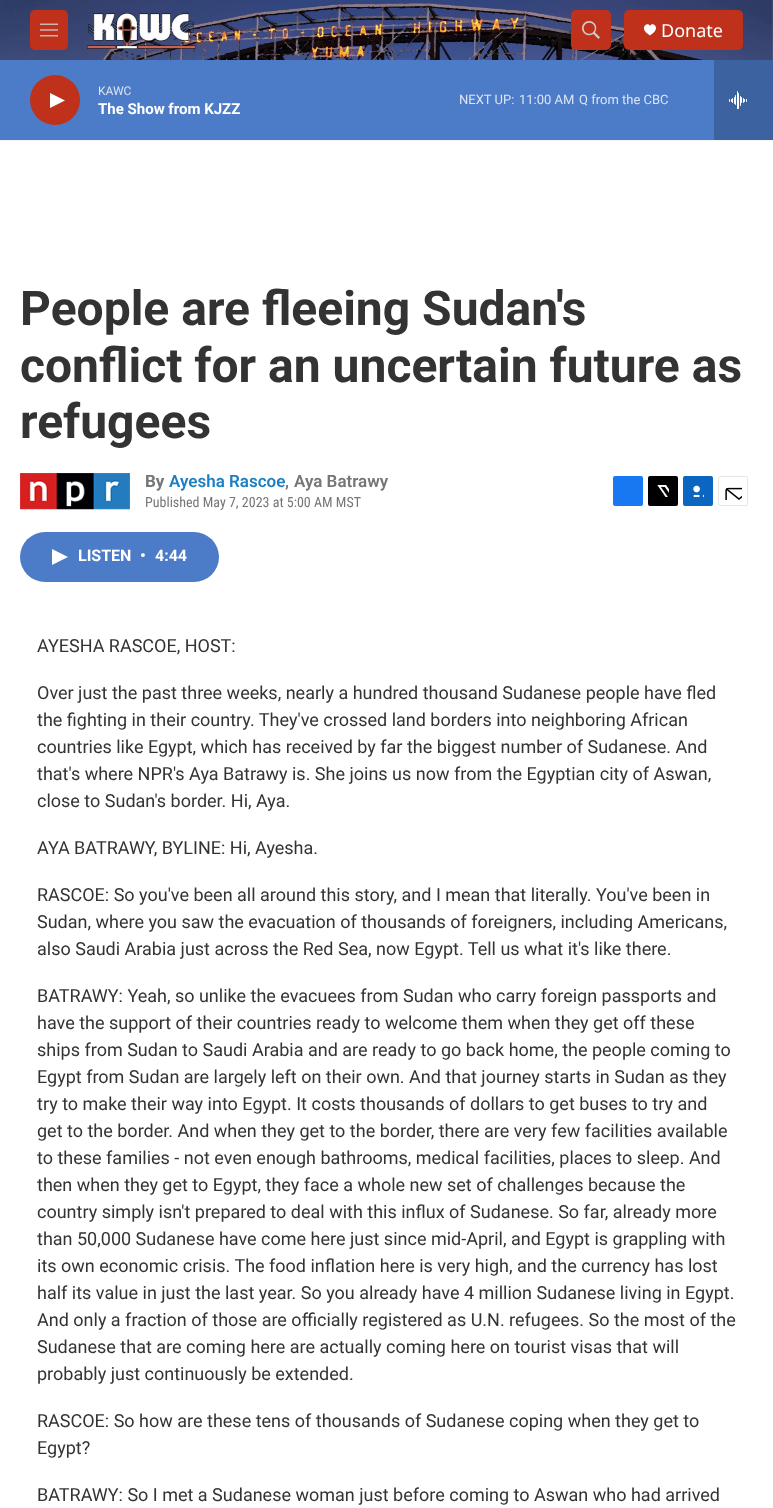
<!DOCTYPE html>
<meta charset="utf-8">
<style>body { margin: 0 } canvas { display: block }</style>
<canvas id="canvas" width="773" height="1508"></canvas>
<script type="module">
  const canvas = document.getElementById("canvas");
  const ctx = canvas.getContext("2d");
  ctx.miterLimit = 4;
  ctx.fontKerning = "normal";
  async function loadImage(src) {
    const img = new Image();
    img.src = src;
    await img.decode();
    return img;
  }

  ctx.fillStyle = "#ffffff";
  ctx.fillRect(0, 0, 773, 1508);
  ctx.fillStyle = "#f5f5f5";
  ctx.fillRect(0, 140, 773, 1);
  ctx.drawImage(await loadImage("img1.png"), 0, 0, 773, 60);
  ctx.fillStyle = "#bf311a";
  ctx.beginPath();
  ctx.roundRect(30, 10, 38, 40, 5);
  ctx.fill();
  ctx.drawImage(await loadImage("img2.png"), 40, 23, 18, 14);
  ctx.drawImage(await loadImage("img3.png"), 87, 13, 109, 36);
  ctx.beginPath();
  ctx.roundRect(571, 10, 40, 40, 5);
  ctx.fill();
  ctx.drawImage(await loadImage("img4.png"), 582, 21, 18, 18);
  ctx.beginPath();
  ctx.roundRect(624, 10, 119, 40, 5);
  ctx.fill();
  ctx.fillStyle = "#ffffff";
  ctx.beginPath();
  ctx.moveTo(650, 26);
  ctx.bezierCurveTo(648, 21, 637.5, 28, 650, 35.5);
  ctx.bezierCurveTo(662.5, 28, 652, 21, 650, 26);
  ctx.closePath();
  ctx.fill();
  ctx.font = "18px Noto Sans";
  ctx.fillText("Donate", 661, 37);
  ctx.fillStyle = "#4c7bc8";
  ctx.fillRect(0, 60, 714, 80);
  ctx.fillStyle = "#bf311a";
  ctx.beginPath();
  ctx.arc(55, 100, 25, 0, Math.PI * 2);
  ctx.fill();
  ctx.fillStyle = "#ffffff";
  ctx.beginPath();
  ctx.moveTo(50, 93);
  ctx.lineTo(65, 100.5);
  ctx.lineTo(50, 108);
  ctx.closePath();
  ctx.fill();
  ctx.font = "12px Roboto";
  ctx.fillStyle = "#dbe5f4";
  ctx.fillText("KAWC", 98, 95);
  ctx.font = "bold 15px 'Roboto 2'";
  ctx.fillStyle = "#ffffff";
  ctx.fillText("The Show from KJZZ", 98, 114);
  ctx.font = "13px Roboto";
  ctx.fillStyle = "#dbe5f4";
  ctx.fillText("NEXT UP:", 459, 104);
  ctx.fillText("11:00 AM", 519, 104);
  ctx.fillText("Q from the CBC", 579, 104);
  ctx.fillStyle = "#3d62a0";
  ctx.fillRect(714, 60, 59, 80);
  ctx.drawImage(await loadImage("img5.png"), 729, 91, 18, 18);
  ctx.font = "bold 48px Roboto";
  ctx.fillStyle = "#333333";
  ctx.fillText("People are fleeing Sudan's", 20, 325);
  ctx.fillText("conflict for an uncertain future as", 20, 382);
  ctx.fillText("refugees", 20, 438);
  ctx.drawImage(await loadImage("img6.png"), 20, 473, 110, 37);
  ctx.font = "bold 17px Roboto";
  ctx.fillStyle = "#767676";
  ctx.fillText("By", 145, 487);
  ctx.font = "600 17px Roboto";
  ctx.fillStyle = "#1a7fc3";
  ctx.fillText("Ayesha Rascoe", 169, 487);
  ctx.fillStyle = "#767676";
  ctx.fillText(",", 285, 487);
  ctx.fillText("Aya Batrawy", 294, 487);
  ctx.font = "14px Roboto Condensed";
  ctx.fillText("Published May 7, 2023 at 5:00 AM MST", 145, 507);
  ctx.fillStyle = "#1778f2";
  ctx.beginPath();
  ctx.roundRect(613, 476, 30, 30, 2);
  ctx.fill();
  ctx.fillStyle = "#000000";
  ctx.beginPath();
  ctx.roundRect(648, 476, 30, 30, 2);
  ctx.fill();
  ctx.drawImage(await loadImage("img7.png"), 657, 485, 12, 12);
  ctx.fillStyle = "#0a66c1";
  ctx.beginPath();
  ctx.roundRect(683, 476, 30, 30, 2);
  ctx.fill();
  ctx.drawImage(await loadImage("img8.png"), 693, 485, 11, 12);
  ctx.beginPath();
  ctx.roundRect(718.5, 476.5, 29, 29, 1.5);
  ctx.strokeStyle = "#e6e6e6";
  ctx.stroke();
  ctx.drawImage(await loadImage("img9.png"), 725, 487, 17, 13);
  ctx.fillStyle = "#4c7bc8";
  ctx.beginPath();
  ctx.roundRect(20, 532, 199, 50, 25);
  ctx.fill();
  ctx.fillStyle = "#ffffff";
  ctx.beginPath();
  ctx.moveTo(52, 549);
  ctx.lineTo(68, 557);
  ctx.lineTo(52, 565);
  ctx.closePath();
  ctx.fill();
  ctx.font = "bold 16px 'Roboto 2'";
  ctx.fillText("LISTEN", 78, 561);
  ctx.fillText("•", 140, 561);
  ctx.fillText("4:44", 155, 561);
  ctx.font = "18px Roboto";
  ctx.fillStyle = "#333333";
  ctx.fillText("AYESHA RASCOE, HOST:", 37, 652);
  ctx.fillText("Over just the past three weeks, nearly a hundred thousand Sudanese people have fled", 37, 699);
  ctx.fillText("the fighting in their country. They've crossed land borders into neighboring African", 37, 726);
  ctx.fillText("countries like Egypt, which has received by far the biggest number of Sudanese. And", 37, 753);
  ctx.fillText("that's where NPR's Aya Batrawy is. She joins us now from the Egyptian city of Aswan,", 37, 780);
  ctx.fillText("close to Sudan's border. Hi, Aya.", 37, 807);
  ctx.fillText("AYA BATRAWY, BYLINE: Hi, Ayesha.", 37, 854);
  ctx.fillText("RASCOE: So you've been all around this story, and I mean that literally. You've been in", 37, 901);
  ctx.fillText("Sudan, where you saw the evacuation of thousands of foreigners, including Americans,", 37, 928);
  ctx.fillText("also Saudi Arabia just across the Red Sea, now Egypt. Tell us what it's like there.", 37, 955);
  ctx.fillText("BATRAWY: Yeah, so unlike the evacuees from Sudan who carry foreign passports and", 37, 1002);
  ctx.fillText("have the support of their countries ready to welcome them when they get off these", 37, 1029);
  ctx.fillText("ships from Sudan to Saudi Arabia and are ready to go back home, the people coming to", 37, 1056);
  ctx.fillText("Egypt from Sudan are largely left on their own. And that journey starts in Sudan as they", 37, 1083);
  ctx.fillText("try to make their way into Egypt. It costs thousands of dollars to get buses to try and", 37, 1110);
  ctx.fillText("get to the border. And when they get to the border, there are very few facilities available", 37, 1137);
  ctx.fillText("to these families - not even enough bathrooms, medical facilities, places to sleep. And", 37, 1164);
  ctx.fillText("then when they get to Egypt, they face a whole new set of challenges because the", 37, 1191);
  ctx.fillText("country simply isn't prepared to deal with this influx of Sudanese. So far, already more", 37, 1218);
  ctx.fillText("than 50,000 Sudanese have come here just since mid-April, and Egypt is grappling with", 37, 1245);
  ctx.fillText("its own economic crisis. The food inflation here is very high, and the currency has lost", 37, 1272);
  ctx.fillText("half its value in just the last year. So you already have 4 million Sudanese living in Egypt.", 37, 1299);
  ctx.fillText("And only a fraction of those are officially registered as U.N. refugees. So the most of the", 37, 1326);
  ctx.fillText("Sudanese that are coming here are actually coming here on tourist visas that will", 37, 1353);
  ctx.fillText("probably just continuously be extended.", 37, 1380);
  ctx.fillText("RASCOE: So how are these tens of thousands of Sudanese coping when they get to", 37, 1427);
  ctx.fillText("Egypt?", 37, 1454);
  ctx.fillText("BATRAWY: So I met a Sudanese woman just before coming to Aswan who had arrived", 37, 1501);
</script>
